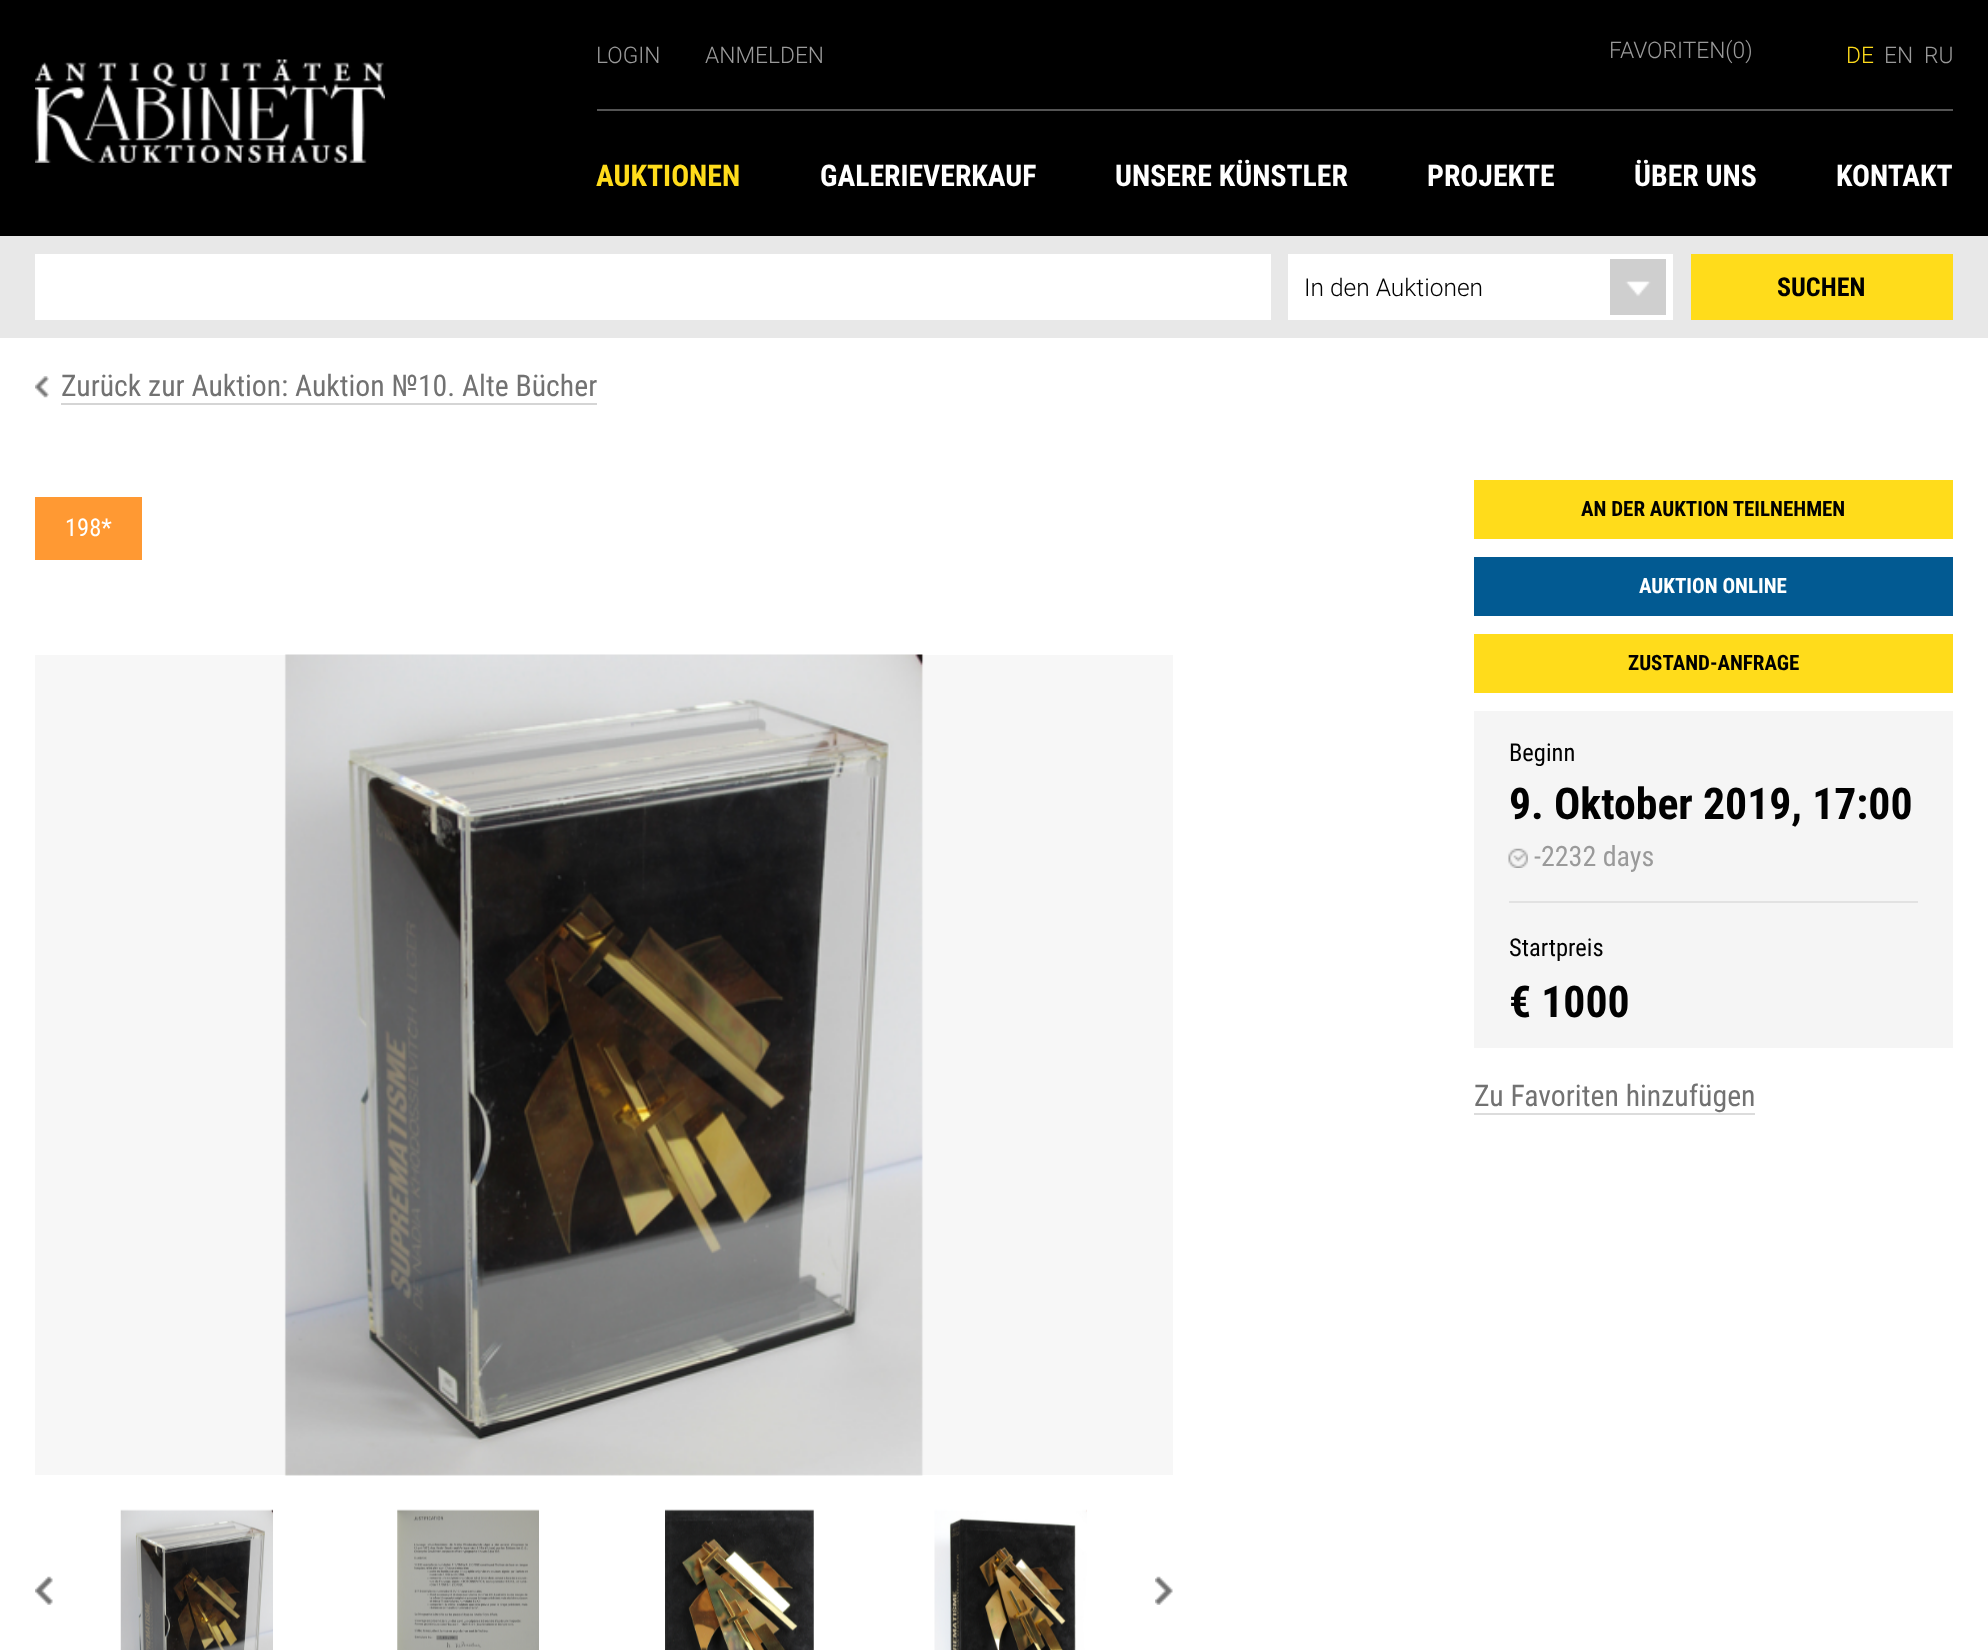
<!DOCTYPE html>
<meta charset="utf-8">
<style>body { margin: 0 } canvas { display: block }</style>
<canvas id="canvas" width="1988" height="1650"></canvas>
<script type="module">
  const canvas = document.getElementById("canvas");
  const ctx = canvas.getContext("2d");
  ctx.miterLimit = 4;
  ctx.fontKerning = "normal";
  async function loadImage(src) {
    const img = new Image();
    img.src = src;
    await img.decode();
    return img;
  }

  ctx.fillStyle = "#ffffff";
  ctx.fillRect(0, 0, 1988, 1650);
  ctx.fillStyle = "#000000";
  ctx.fillRect(0, 0, 1988, 236);
  ctx.fillStyle = "#545454";
  ctx.fillRect(597, 109, 1356, 2);
  ctx.font = "300 22.75px Roboto";
  ctx.fillStyle = "#9a9a9a";
  ctx.fillText("LOGIN", 596, 63);
  ctx.fillText("ANMELDEN", 705, 63);
  ctx.fillText("FAVORITEN(0)", 1609, 58);
  ctx.fillStyle = "#ffdc1b";
  ctx.fillText("DE", 1846, 63);
  ctx.fillStyle = "#9a9a9a";
  ctx.fillText("EN", 1884, 63);
  ctx.fillText("RU", 1924, 63);
  ctx.drawImage(await loadImage("img1.png"), 35, 59, 350, 104);
  ctx.font = "bold 29.75px Roboto Condensed";
  ctx.fillStyle = "#ffdc1b";
  ctx.fillText("AUKTIONEN", 596, 186);
  ctx.fillStyle = "#ffffff";
  ctx.fillText("GALERIEVERKAUF", 820, 186);
  ctx.fillText("UNSERE KÜNSTLER", 1115, 186);
  ctx.fillText("PROJEKTE", 1427, 186);
  ctx.fillText("ÜBER UNS", 1634, 186);
  ctx.fillText("KONTAKT", 1836, 186);
  ctx.fillStyle = "#e8e8e8";
  ctx.fillRect(0, 236, 1988, 102);
  ctx.fillStyle = "#ffffff";
  ctx.fillRect(35, 254, 1236, 66);
  ctx.fillRect(1288, 254, 385, 66);
  ctx.drawImage(await loadImage("img2.png"), 1610, 259, 56, 56);
  ctx.font = "300 24.5px Roboto";
  ctx.fillStyle = "#010101";
  ctx.fillText("In den Auktionen", 1304, 296);
  ctx.fillStyle = "#ffdc1b";
  ctx.fillRect(1691, 254, 262, 66);
  ctx.font = "bold 26px Roboto Condensed";
  ctx.fillStyle = "#010101";
  ctx.fillText("SUCHEN", 1777, 296);
  ctx.drawImage(await loadImage("img3.png"), 35, 376, 14, 22);
  ctx.font = "29.75px Roboto Condensed";
  ctx.fillStyle = "#727272";
  ctx.fillText("Zurück zur Auktion: Auktion №10. Alte Bücher", 61, 396);
  ctx.fillStyle = "#d5d5d5";
  ctx.fillRect(61, 403, 536, 2);
  ctx.fillStyle = "#ff9933";
  ctx.fillRect(35, 497, 107, 63);
  ctx.font = "24.5px Roboto Condensed";
  ctx.fillStyle = "#ffffff";
  ctx.fillText("198*", 65, 536);
  ctx.fillStyle = "#ffdc1b";
  ctx.fillRect(1474, 480, 479, 59);
  ctx.font = "bold 21px Roboto Condensed";
  ctx.fillStyle = "#010101";
  ctx.fillText("AN DER AUKTION TEILNEHMEN", 1581, 516);
  ctx.fillStyle = "#025a92";
  ctx.fillRect(1474, 557, 479, 59);
  ctx.fillStyle = "#ffffff";
  ctx.fillText("AUKTION ONLINE", 1639, 593);
  ctx.fillStyle = "#ffdc1b";
  ctx.fillRect(1474, 634, 479, 59);
  ctx.fillStyle = "#010101";
  ctx.fillText("ZUSTAND-ANFRAGE", 1628, 670);
  ctx.fillStyle = "#f5f5f5";
  ctx.fillRect(1474, 711, 479, 337);
  ctx.fillStyle = "#e2e2e2";
  ctx.fillRect(1509, 901, 409, 2);
  ctx.font = "24.5px Roboto Condensed";
  ctx.fillStyle = "#010101";
  ctx.fillText("Beginn", 1509, 761);
  ctx.font = "bold 43.75px Roboto Condensed";
  ctx.fillText("9. Oktober 2019, 17:00", 1509, 819);
  ctx.drawImage(await loadImage("img4.png"), 1508, 848, 20, 20);
  ctx.font = "28px Roboto Condensed";
  ctx.fillStyle = "#9a9a9a";
  ctx.fillText("-2232 days", 1534, 866);
  ctx.font = "24.5px Roboto Condensed";
  ctx.fillStyle = "#010101";
  ctx.fillText("Startpreis", 1509, 956);
  ctx.font = "bold 43.75px Roboto Condensed";
  ctx.fillText("€ 1000", 1509, 1017);
  ctx.font = "29.75px Roboto Condensed";
  ctx.fillStyle = "#727272";
  ctx.fillText("Zu Favoriten hinzufügen", 1474, 1106);
  ctx.fillStyle = "#dcdcdc";
  ctx.fillRect(1474, 1113, 281, 2);
  ctx.fillStyle = "#f7f7f7";
  ctx.fillRect(35, 655, 1138, 820);
  ctx.drawImage(await loadImage("img5.png"), 284, 654, 640, 822);
  ctx.drawImage(await loadImage("img6.png"), 35, 1576, 18, 29);
  ctx.drawImage(await loadImage("img7.png"), 120, 1509, 153, 141);
  ctx.drawImage(await loadImage("img8.png"), 397, 1509, 142, 141);
  ctx.drawImage(await loadImage("img9.png"), 665, 1509, 149, 141);
  ctx.drawImage(await loadImage("img10.png"), 934, 1509, 153, 141);
  ctx.drawImage(await loadImage("img11.png"), 1155, 1576, 18, 29);
</script>
